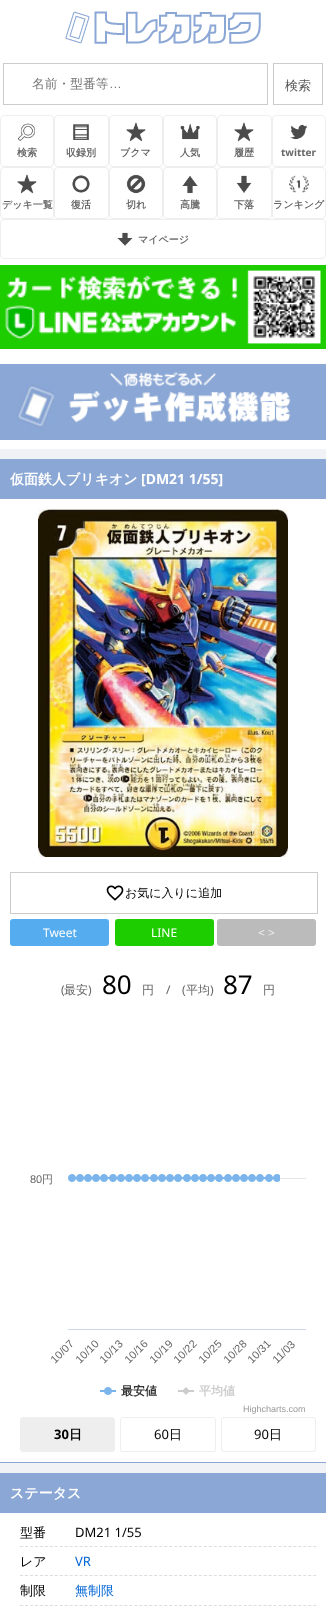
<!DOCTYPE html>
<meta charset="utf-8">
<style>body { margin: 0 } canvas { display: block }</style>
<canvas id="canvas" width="326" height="1610"></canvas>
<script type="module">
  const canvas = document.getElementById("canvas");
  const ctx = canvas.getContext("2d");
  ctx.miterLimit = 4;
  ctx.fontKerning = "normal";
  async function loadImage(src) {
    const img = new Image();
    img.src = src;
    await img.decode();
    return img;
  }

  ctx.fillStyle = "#f1f2f6";
  ctx.fillRect(0, 0, 326, 1610);
  ctx.fillStyle = "#ffffff";
  ctx.fillRect(0, 0, 326, 449);
  ctx.drawImage(await loadImage("img1.png"), 65, 11, 196, 33);
  ctx.strokeStyle = "#cccccc";
  ctx.strokeRect(3.5, 63.5, 264, 41);
  ctx.font = "500 12.75px WenQuanYi Zen Hei";
  ctx.fillStyle = "#757575";
  ctx.fillText("名前・型番等", 32, 88);
  ctx.font = "12.75px Liberation Sans";
  ctx.fillText("…", 109, 88);
  ctx.strokeRect(273.5, 63.5, 49, 41);
  ctx.font = "500 13px WenQuanYi Zen Hei";
  ctx.fillStyle = "#555555";
  ctx.fillText("検索", 285, 90);
  ctx.beginPath();
  ctx.roundRect(0.5, 115.5, 53, 51, 3.5);
  ctx.strokeStyle = "#eeeeee";
  ctx.stroke();
  ctx.drawImage(await loadImage("img2.png"), 18, 123, 17, 18);
  ctx.font = "bold 10px WenQuanYi Zen Hei";
  ctx.fillStyle = "#666666";
  ctx.fillText("検索", 17, 156);
  ctx.beginPath();
  ctx.roundRect(54.5, 115.5, 54, 51, 3.5);
  ctx.stroke();
  ctx.drawImage(await loadImage("img3.png"), 73, 124, 16, 16);
  ctx.fillText("収録別", 66, 156);
  ctx.beginPath();
  ctx.roundRect(109.5, 115.5, 53, 51, 3.5);
  ctx.stroke();
  ctx.drawImage(await loadImage("img4.png"), 126, 122, 20, 20);
  ctx.fillText("ブクマ", 120, 156);
  ctx.beginPath();
  ctx.roundRect(163.5, 115.5, 53, 51, 3.5);
  ctx.stroke();
  ctx.drawImage(await loadImage("img5.png"), 180, 124, 20, 16);
  ctx.fillText("人気", 180, 156);
  ctx.beginPath();
  ctx.roundRect(217.5, 115.5, 54, 51, 3.5);
  ctx.stroke();
  ctx.drawImage(await loadImage("img4.png"), 234, 122, 20, 20);
  ctx.fillText("履歴", 234, 156);
  ctx.beginPath();
  ctx.roundRect(272.5, 115.5, 53, 51, 3.5);
  ctx.stroke();
  ctx.drawImage(await loadImage("img6.png"), 290, 124, 18, 16);
  ctx.font = "bold 10px Noto Sans";
  ctx.fillText("twitter", 281, 156);
  ctx.beginPath();
  ctx.roundRect(0.5, 167.5, 53, 51, 3.5);
  ctx.stroke();
  ctx.drawImage(await loadImage("img7.png"), 17, 174, 20, 20);
  ctx.font = "bold 10px WenQuanYi Zen Hei";
  ctx.fillText("デッキ一覧", 2, 208);
  ctx.beginPath();
  ctx.roundRect(54.5, 167.5, 54, 51, 3.5);
  ctx.stroke();
  ctx.drawImage(await loadImage("img8.png"), 72, 175, 18, 18);
  ctx.fillText("復活", 71, 208);
  ctx.beginPath();
  ctx.roundRect(109.5, 167.5, 53, 51, 3.5);
  ctx.stroke();
  ctx.drawImage(await loadImage("img9.png"), 126, 174, 20, 20);
  ctx.fillText("切れ", 126, 208);
  ctx.beginPath();
  ctx.roundRect(163.5, 167.5, 53, 51, 3.5);
  ctx.stroke();
  ctx.drawImage(await loadImage("img10.png"), 182, 176, 16, 18);
  ctx.fillText("高騰", 180, 208);
  ctx.beginPath();
  ctx.roundRect(217.5, 167.5, 54, 51, 3.5);
  ctx.stroke();
  ctx.drawImage(await loadImage("img11.png"), 236, 175, 16, 18);
  ctx.fillText("下落", 234, 208);
  ctx.beginPath();
  ctx.roundRect(272.5, 167.5, 53, 51, 3.5);
  ctx.stroke();
  ctx.drawImage(await loadImage("img12.png"), 289, 175, 20, 18);
  ctx.fillText("ランキング", 273, 208);
  ctx.beginPath();
  ctx.roundRect(0.5, 219.5, 325, 39, 3.5);
  ctx.stroke();
  ctx.drawImage(await loadImage("img13.png"), 117, 232, 16, 14);
  ctx.fillText("マイページ", 138, 243);
  ctx.drawImage(await loadImage("img14.png"), 0, 265, 326, 84);
  ctx.drawImage(await loadImage("img15.png"), 0, 364, 326, 76);
  ctx.fillStyle = "#ffffff";
  ctx.fillRect(0, 499, 326, 963);
  ctx.fillStyle = "#8ba7d5";
  ctx.fillRect(0, 1462, 326, 1);
  ctx.fillRect(0, 459, 326, 40);
  ctx.font = "bold 14px WenQuanYi Zen Hei";
  ctx.fillStyle = "#ffffff";
  ctx.fillText("仮面鉄人ブリキオン", 10, 484);
  ctx.font = "bold 14px Noto Sans";
  ctx.fillText("[DM21 1/55]", 141, 484);
  ctx.drawImage(await loadImage("img16.png"), 38, 509, 250, 348);
  ctx.strokeStyle = "#cccccc";
  ctx.strokeRect(10.5, 872.5, 307, 41);
  ctx.drawImage(await loadImage("img17.png"), 106, 885, 18, 16);
  ctx.font = "500 12px WenQuanYi Zen Hei";
  ctx.fillStyle = "#000000";
  ctx.fillText("お気に入りに追加", 125, 897);
  ctx.fillStyle = "#55acee";
  ctx.beginPath();
  ctx.roundRect(10, 919, 99, 27, 3);
  ctx.fill();
  ctx.font = "12px Noto Sans";
  ctx.fillStyle = "#ffffff";
  ctx.fillText("Tweet", 43, 937);
  ctx.fillStyle = "#1dcd00";
  ctx.beginPath();
  ctx.roundRect(115, 919, 99, 27, 3);
  ctx.fill();
  ctx.fillStyle = "#ffffff";
  ctx.fillText("LINE", 151, 937);
  ctx.fillStyle = "#bbbbbb";
  ctx.beginPath();
  ctx.roundRect(217, 919, 99, 27, 3);
  ctx.fill();
  ctx.fillStyle = "#eeeeee";
  ctx.fillText("< >", 258, 937);
  ctx.fillStyle = "#666666";
  ctx.fillText("(", 61, 994);
  ctx.font = "500 12px WenQuanYi Zen Hei";
  ctx.fillText("最安", 64, 994);
  ctx.font = "12px Noto Sans";
  ctx.fillText(")", 88, 994);
  ctx.font = "26px Noto Sans";
  ctx.fillStyle = "#000000";
  ctx.fillText("80", 102, 994);
  ctx.font = "500 12px WenQuanYi Zen Hei";
  ctx.fillStyle = "#666666";
  ctx.fillText("円", 142, 994);
  ctx.font = "12px Noto Sans";
  ctx.fillText("/", 166, 994);
  ctx.fillText("(", 182, 994);
  ctx.font = "500 12px WenQuanYi Zen Hei";
  ctx.fillText("平均", 186, 994);
  ctx.font = "12px Noto Sans";
  ctx.fillText(")", 210, 994);
  ctx.font = "26px Noto Sans";
  ctx.fillStyle = "#000000";
  ctx.fillText("87", 223, 994);
  ctx.font = "500 12px WenQuanYi Zen Hei";
  ctx.fillStyle = "#666666";
  ctx.fillText("円", 263, 994);
  ctx.font = "11px Liberation Sans";
  ctx.fillText("80", 30, 1183);
  ctx.font = "500 11px WenQuanYi Zen Hei";
  ctx.fillText("円", 42, 1183);
  ctx.drawImage(await loadImage("img18.png"), 68, 1174, 238, 221);
  ctx.font = "11px Liberation Sans";
  ctx.save();
  ctx.translate(55, 1364);
  ctx.rotate(-45 * Math.PI / 180);
  ctx.fillText("10/07", 0, 0);
  ctx.restore();
  ctx.save();
  ctx.translate(80, 1364);
  ctx.rotate(-45 * Math.PI / 180);
  ctx.fillText("10/10", 0, 0);
  ctx.restore();
  ctx.save();
  ctx.translate(104, 1364);
  ctx.rotate(-45 * Math.PI / 180);
  ctx.fillText("10/13", 0, 0);
  ctx.restore();
  ctx.save();
  ctx.translate(129, 1364);
  ctx.rotate(-45 * Math.PI / 180);
  ctx.fillText("10/16", 0, 0);
  ctx.restore();
  ctx.save();
  ctx.translate(154, 1364);
  ctx.rotate(-45 * Math.PI / 180);
  ctx.fillText("10/19", 0, 0);
  ctx.restore();
  ctx.save();
  ctx.translate(178, 1364);
  ctx.rotate(-45 * Math.PI / 180);
  ctx.fillText("10/22", 0, 0);
  ctx.restore();
  ctx.save();
  ctx.translate(203, 1364);
  ctx.rotate(-45 * Math.PI / 180);
  ctx.fillText("10/25", 0, 0);
  ctx.restore();
  ctx.save();
  ctx.translate(228, 1364);
  ctx.rotate(-45 * Math.PI / 180);
  ctx.fillText("10/28", 0, 0);
  ctx.restore();
  ctx.save();
  ctx.translate(252, 1364);
  ctx.rotate(-45 * Math.PI / 180);
  ctx.fillText("10/31", 0, 0);
  ctx.restore();
  ctx.save();
  ctx.translate(277, 1364);
  ctx.rotate(-45 * Math.PI / 180);
  ctx.fillText("11/03", 0, 0);
  ctx.restore();
  ctx.font = "bold 12px WenQuanYi Zen Hei";
  ctx.fillStyle = "#333333";
  ctx.fillText("最安値", 121, 1395);
  ctx.fillStyle = "#cccccc";
  ctx.fillText("平均値", 199, 1395);
  ctx.font = "9px Liberation Sans";
  ctx.fillStyle = "#999999";
  ctx.fillText("Highcharts.com", 243, 1412);
  ctx.fillStyle = "#eeeeee";
  ctx.beginPath();
  ctx.roundRect(20.5, 1417.5, 94, 34, 2.5);
  ctx.fill();
  ctx.strokeStyle = "#eeeeee";
  ctx.stroke();
  ctx.font = "bold 13px Noto Sans";
  ctx.fillStyle = "#000000";
  ctx.fillText("30", 54, 1439);
  ctx.font = "bold 13px WenQuanYi Zen Hei";
  ctx.fillText("日", 69, 1439);
  ctx.beginPath();
  ctx.roundRect(120.5, 1417.5, 95, 34, 2.5);
  ctx.stroke();
  ctx.font = "13px Noto Sans";
  ctx.fillText("60", 154, 1439);
  ctx.font = "500 13px WenQuanYi Zen Hei";
  ctx.fillText("日", 169, 1439);
  ctx.beginPath();
  ctx.roundRect(221.5, 1417.5, 94, 34, 2.5);
  ctx.stroke();
  ctx.font = "13px Noto Sans";
  ctx.fillText("90", 254, 1439);
  ctx.font = "500 13px WenQuanYi Zen Hei";
  ctx.fillText("日", 269, 1439);
  ctx.fillStyle = "#ffffff";
  ctx.fillRect(0, 1513, 326, 97);
  ctx.fillStyle = "#8ba7d5";
  ctx.fillRect(0, 1473, 326, 40);
  ctx.font = "bold 14px WenQuanYi Zen Hei";
  ctx.fillStyle = "#ffffff";
  ctx.fillText("ステータス", 10, 1498);
  ctx.font = "500 13px WenQuanYi Zen Hei";
  ctx.fillStyle = "#000000";
  ctx.fillText("型番", 20, 1537);
  ctx.beginPath();
  ctx.moveTo(20, 1546.5);
  ctx.lineTo(316, 1546.5);
  ctx.strokeStyle = "#dddddd";
  ctx.setLineDash([3, 1.97]);
  ctx.stroke();
  ctx.font = "13px Noto Sans";
  ctx.fillText("DM21 1/55", 75, 1537);
  ctx.font = "500 13px WenQuanYi Zen Hei";
  ctx.fillText("レア", 20, 1566);
  ctx.beginPath();
  ctx.moveTo(20, 1575.5);
  ctx.lineTo(316, 1575.5);
  ctx.stroke();
  ctx.font = "13px Noto Sans";
  ctx.fillStyle = "#0366d6";
  ctx.fillText("VR", 75, 1566);
  ctx.font = "500 13px WenQuanYi Zen Hei";
  ctx.fillStyle = "#000000";
  ctx.fillText("制限", 20, 1595);
  ctx.beginPath();
  ctx.moveTo(20, 1605.5);
  ctx.lineTo(316, 1605.5);
  ctx.stroke();
  ctx.fillStyle = "#0366d6";
  ctx.fillText("無制限", 75, 1595);
</script>
